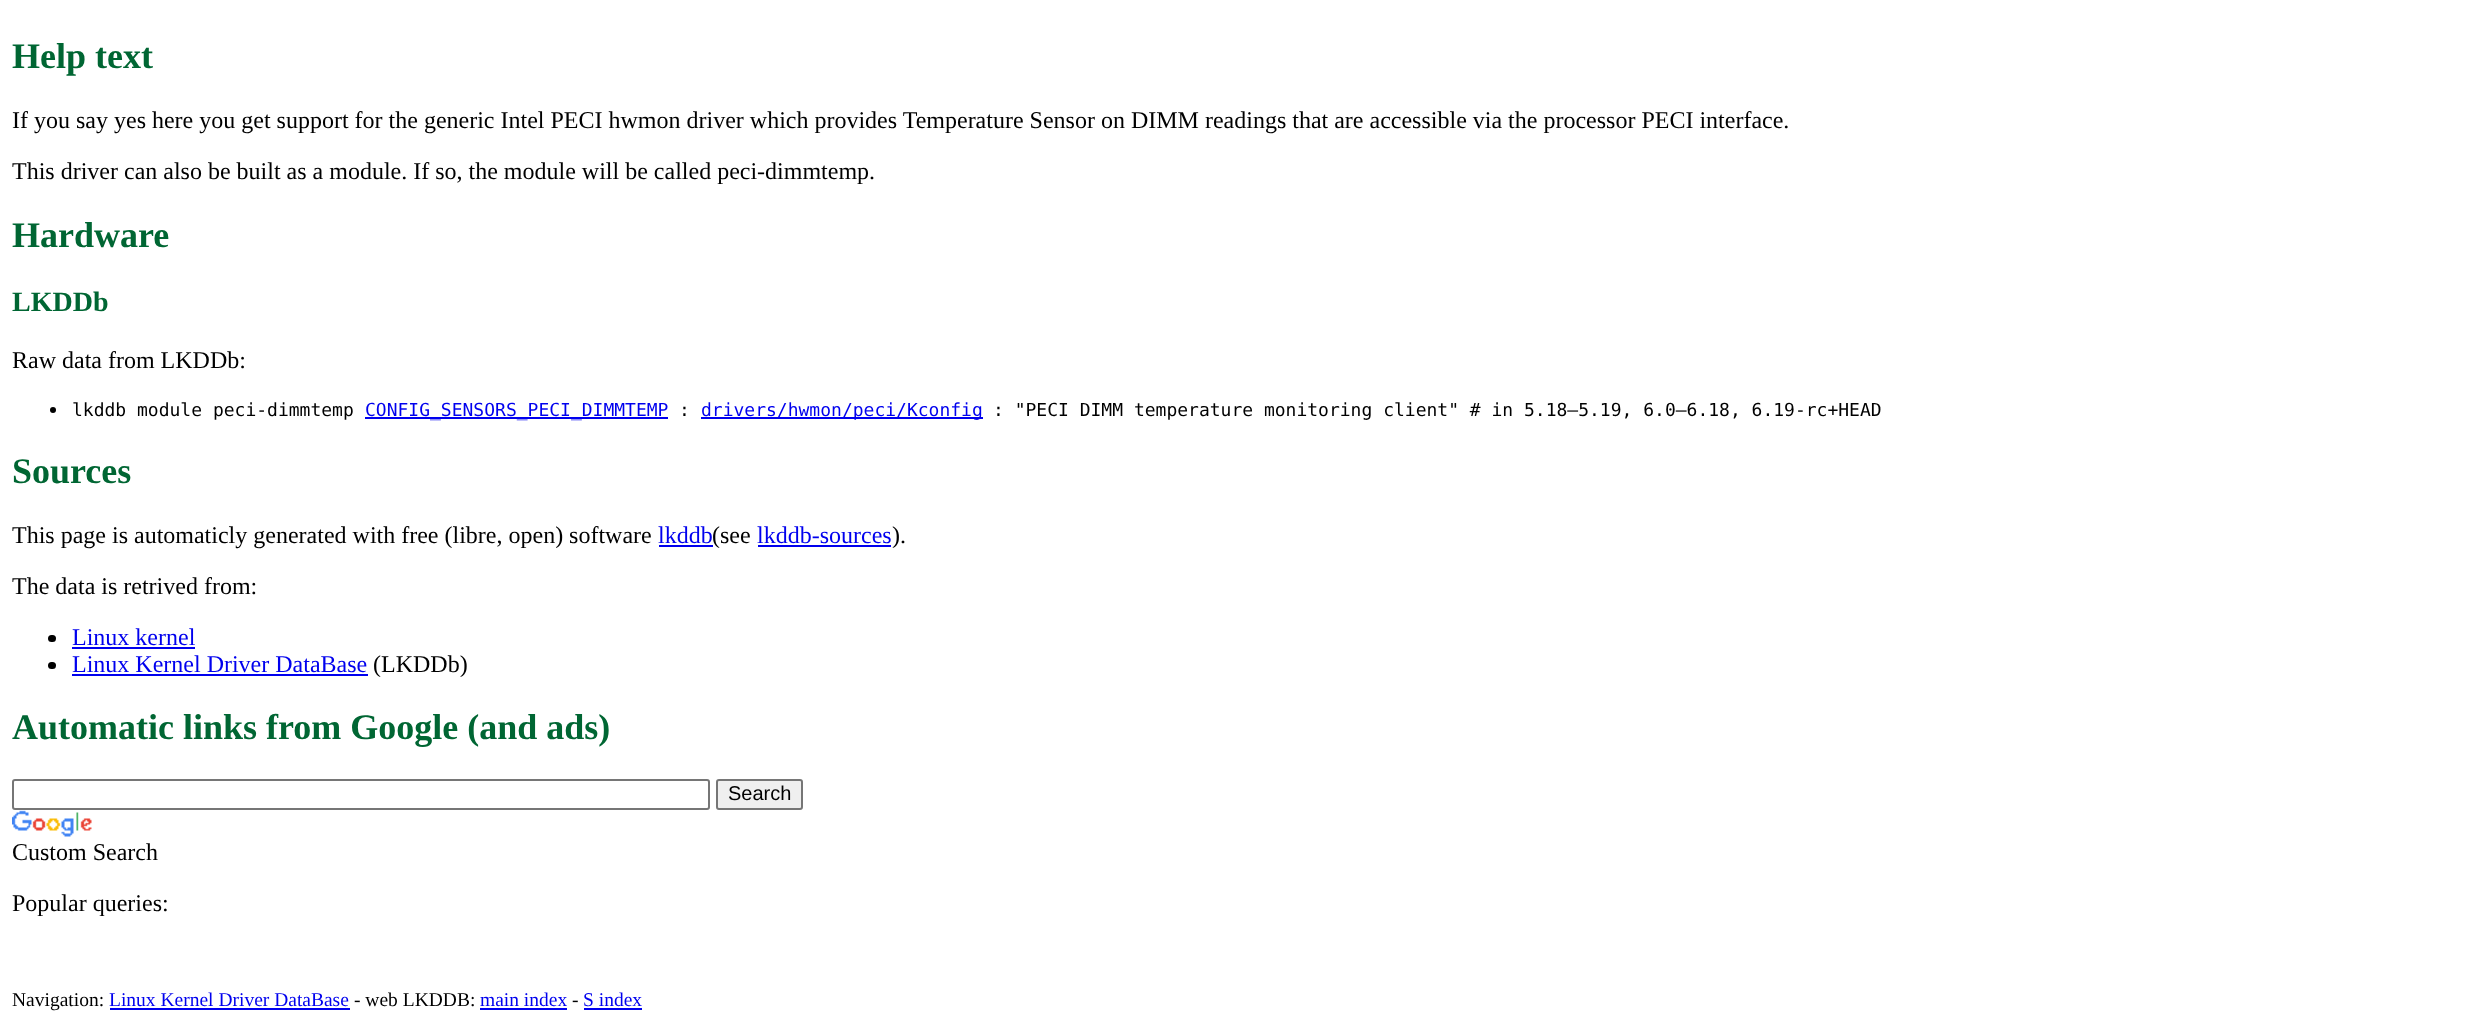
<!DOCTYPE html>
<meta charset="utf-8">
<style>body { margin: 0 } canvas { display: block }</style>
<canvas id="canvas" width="2472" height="1015"></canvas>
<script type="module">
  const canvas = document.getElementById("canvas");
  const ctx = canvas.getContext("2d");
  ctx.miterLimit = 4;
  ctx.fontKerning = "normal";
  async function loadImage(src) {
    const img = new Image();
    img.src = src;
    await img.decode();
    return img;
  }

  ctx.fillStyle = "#ffffff";
  ctx.fillRect(0, 0, 2472, 1015);
  ctx.font = "bold 36px Liberation Serif";
  ctx.fillStyle = "#006633";
  ctx.fillText("Help text", 12, 68);
  ctx.font = "24px Liberation Serif";
  ctx.fillStyle = "#000000";
  ctx.fillText("If you say yes here you get support for the generic Intel PECI hwmon driver which provides Temperature Sensor on DIMM readings that are accessible via the processor PECI interface.", 12, 128);
  ctx.fillText("This driver can also be built as a module. If so, the module will be called peci-dimmtemp.", 12, 179);
  ctx.font = "bold 36px Liberation Serif";
  ctx.fillStyle = "#006633";
  ctx.fillText("Hardware", 12, 247);
  ctx.font = "bold 28px Liberation Serif";
  ctx.fillText("LKDDb", 12, 311);
  ctx.font = "24px Liberation Serif";
  ctx.fillStyle = "#000000";
  ctx.fillText("Raw data from LKDDb:", 12, 368);
  ctx.beginPath();
  ctx.arc(53, 410, 3, 0, Math.PI * 2);
  ctx.fill();
  ctx.font = "18px DejaVu Sans Mono";
  ctx.fillText("lkddb module peci-dimmtemp", 72, 416);
  ctx.fillStyle = "#0000ee";
  ctx.fillRect(365, 417, 303, 2);
  ctx.fillText("CONFIG_SENSORS_PECI_DIMMTEMP", 365, 416);
  ctx.fillStyle = "#000000";
  ctx.fillText(":", 679, 416);
  ctx.fillStyle = "#0000ee";
  ctx.fillRect(701, 417, 282, 2);
  ctx.fillText("drivers/hwmon/peci/Kconfig", 701, 416);
  ctx.fillStyle = "#000000";
  ctx.fillText(": \"PECI DIMM temperature monitoring client\" # in 5.18–5.19, 6.0–6.18, 6.19-rc+HEAD", 993, 416);
  ctx.font = "bold 36px Liberation Serif";
  ctx.fillStyle = "#006633";
  ctx.fillText("Sources", 12, 483);
  ctx.font = "24px Liberation Serif";
  ctx.fillStyle = "#000000";
  ctx.fillText("This page is automaticly generated with free (libre, open) software", 12, 543);
  ctx.fillStyle = "#0000ee";
  ctx.fillText("lkddb", 658, 543);
  ctx.fillRect(659, 545, 54, 2);
  ctx.fillStyle = "#000000";
  ctx.fillText("(see", 712, 543);
  ctx.fillStyle = "#0000ee";
  ctx.fillText("lkddb-sources", 757, 543);
  ctx.fillRect(758, 545, 133, 2);
  ctx.fillStyle = "#000000";
  ctx.fillText(").", 892, 543);
  ctx.fillText("The data is retrived from:", 12, 594);
  ctx.beginPath();
  ctx.roundRect(48, 635, 8, 7, 3.5);
  ctx.fill();
  ctx.fillStyle = "#0000ee";
  ctx.fillText("Linux kernel", 72, 645);
  ctx.fillRect(72, 647, 123, 2);
  ctx.fillStyle = "#000000";
  ctx.beginPath();
  ctx.roundRect(48, 662, 8, 7, 3.5);
  ctx.fill();
  ctx.fillStyle = "#0000ee";
  ctx.fillText("Linux Kernel Driver DataBase", 72, 672);
  ctx.fillRect(72, 674, 296, 2);
  ctx.fillStyle = "#000000";
  ctx.fillText("(LKDDb)", 373, 672);
  ctx.font = "bold 36px Liberation Serif";
  ctx.fillStyle = "#006633";
  ctx.fillText("Automatic links from Google (and ads)", 12, 739);
  ctx.beginPath();
  ctx.roundRect(13, 780, 696, 29, 2);
  ctx.strokeStyle = "#767676";
  ctx.lineWidth = 2;
  ctx.stroke();
  ctx.fillStyle = "#efefef";
  ctx.beginPath();
  ctx.roundRect(717, 780, 85, 29, 2);
  ctx.fill();
  ctx.stroke();
  ctx.font = "20px Liberation Sans";
  ctx.fillStyle = "#000000";
  ctx.fillText("Search", 728, 800);
  ctx.drawImage(await loadImage("img1.png"), 12, 810, 80, 27);
  ctx.font = "24px Liberation Serif";
  ctx.fillText("Custom Search", 12, 860);
  ctx.fillText("Popular queries:", 12, 911);
  ctx.font = "19.5px Liberation Serif";
  ctx.fillText("Navigation:", 12, 1006);
  ctx.fillStyle = "#0000ee";
  ctx.fillText("Linux Kernel Driver DataBase", 109, 1006);
  ctx.fillRect(110, 1008, 240, 2);
  ctx.fillStyle = "#000000";
  ctx.fillText("- web LKDDB:", 354, 1006);
  ctx.fillStyle = "#0000ee";
  ctx.fillText("main index", 480, 1006);
  ctx.fillRect(480, 1008, 87, 2);
  ctx.fillStyle = "#000000";
  ctx.fillText("-", 572, 1006);
  ctx.fillStyle = "#0000ee";
  ctx.fillText("S index", 583, 1006);
  ctx.fillRect(584, 1008, 58, 2);
</script>
